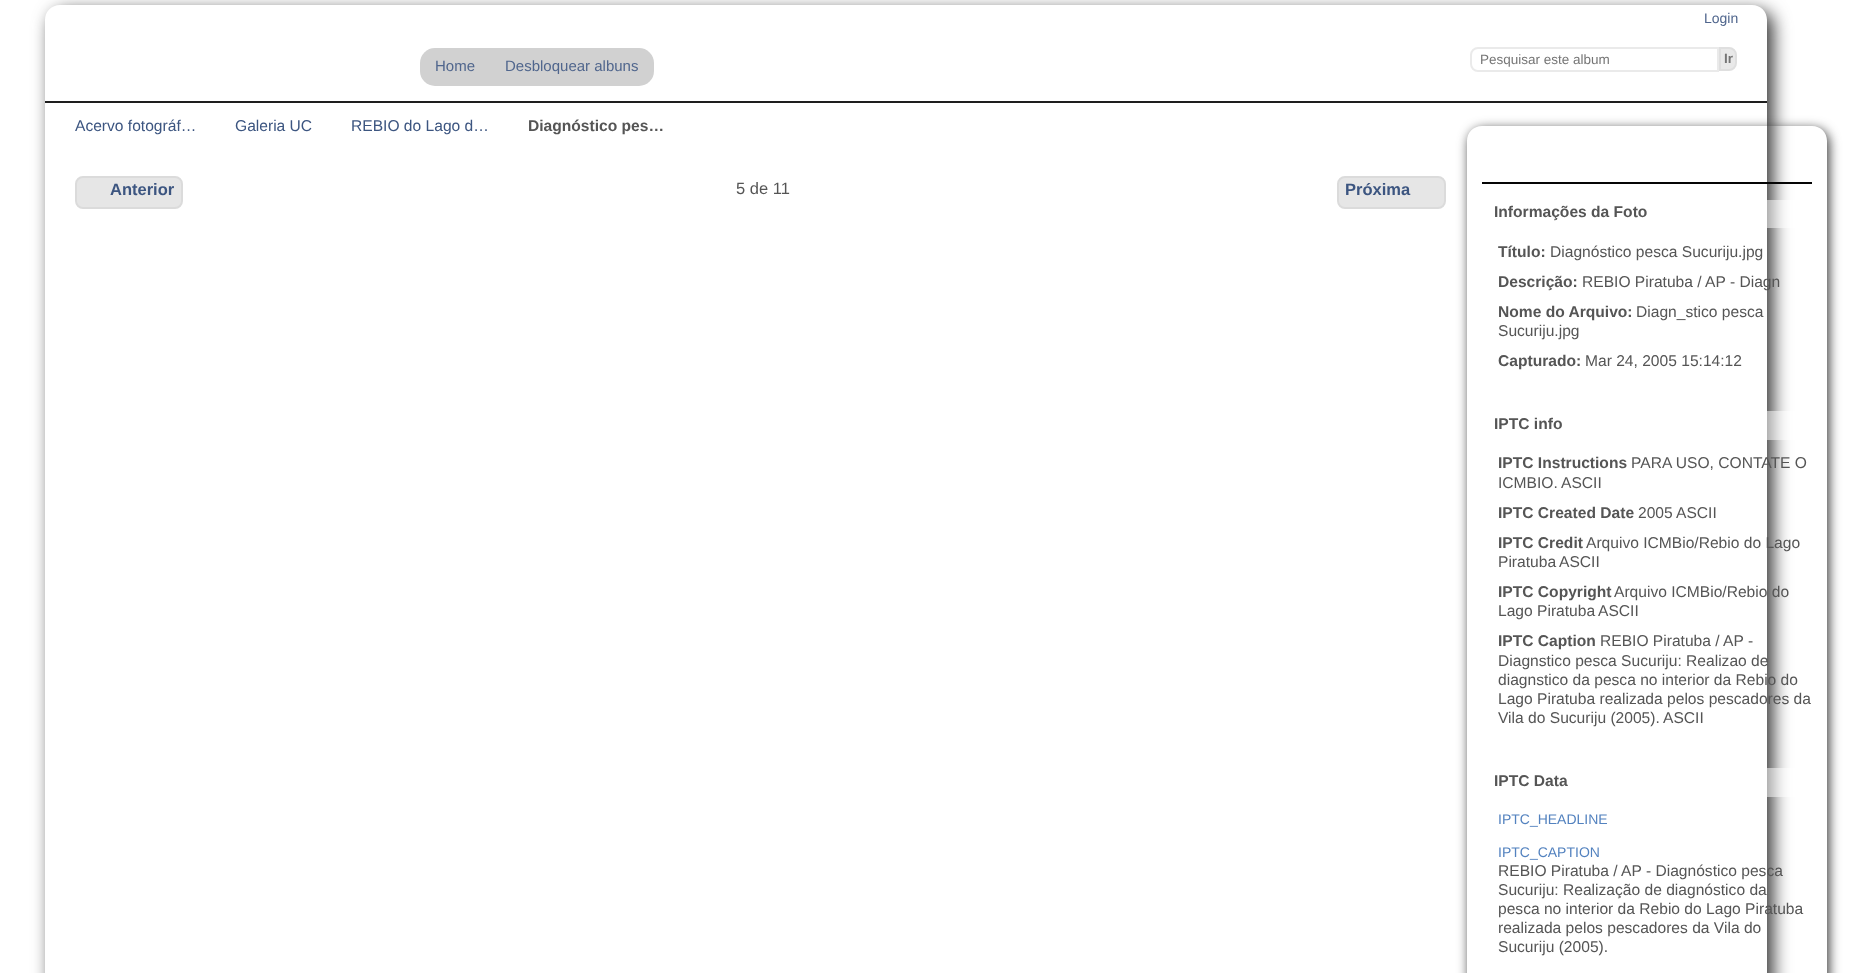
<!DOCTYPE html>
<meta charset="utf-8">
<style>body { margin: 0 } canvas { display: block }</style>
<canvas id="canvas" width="1872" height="973"></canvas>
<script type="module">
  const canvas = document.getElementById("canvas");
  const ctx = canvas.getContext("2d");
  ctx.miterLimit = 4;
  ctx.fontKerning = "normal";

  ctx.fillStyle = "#ffffff";
  ctx.fillRect(0, 0, 1872, 973);
  ctx.save();
  ctx.beginPath();
  ctx.moveTo(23, 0);
  ctx.lineTo(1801, 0);
  ctx.lineTo(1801, 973);
  ctx.lineTo(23, 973);
  ctx.closePath();
  ctx.moveTo(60, 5);
  ctx.lineTo(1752, 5);
  ctx.bezierCurveTo(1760.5, 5, 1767, 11.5, 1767, 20);
  ctx.lineTo(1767, 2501);
  ctx.bezierCurveTo(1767, 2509.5, 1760.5, 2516, 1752, 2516);
  ctx.lineTo(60, 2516);
  ctx.bezierCurveTo(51.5, 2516, 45, 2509.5, 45, 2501);
  ctx.lineTo(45, 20);
  ctx.bezierCurveTo(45, 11.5, 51.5, 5, 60, 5);
  ctx.closePath();
  ctx.clip("evenodd");
  ctx.fillStyle = "#333333";
  ctx.filter = "blur(9px)";
  ctx.beginPath();
  ctx.roundRect(51, 11, 1722, 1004, 15);
  ctx.fill();
  ctx.filter = "none";
  ctx.restore();
  ctx.fillStyle = "#1e1e1e";
  ctx.fillRect(45, 101, 1722, 2);
  ctx.font = "14px Liberation Sans";
  ctx.fillStyle = "#50668d";
  ctx.fillText("Login", 1704, 23);
  ctx.fillStyle = "#d1d1d1";
  ctx.beginPath();
  ctx.roundRect(420, 48, 234, 38, 15);
  ctx.fill();
  ctx.font = "15px Liberation Sans";
  ctx.fillStyle = "#50668d";
  ctx.fillText("Home", 435, 71);
  ctx.fillText("Desbloquear albuns", 505, 71);
  ctx.beginPath();
  ctx.roundRect(1471, 48, 247, 23, [7, 0, 0, 7]);
  ctx.strokeStyle = "#eaeaea";
  ctx.lineWidth = 2;
  ctx.stroke();
  ctx.font = "13.5px Liberation Sans";
  ctx.fillStyle = "#757575";
  ctx.fillText("Pesquisar este album", 1480, 64);
  ctx.fillStyle = "#e9e9e9";
  ctx.beginPath();
  ctx.roundRect(1720, 48, 16, 22, [0, 7, 7, 0]);
  ctx.fill();
  ctx.strokeStyle = "#dfdfdf";
  ctx.stroke();
  ctx.font = "bold 13.5px Liberation Sans";
  ctx.fillStyle = "#757575";
  ctx.fillText("Ir", 1724, 63);
  ctx.font = "15.6px Liberation Sans";
  ctx.fillStyle = "#3c5580";
  ctx.fillText("Acervo fotográf…", 75, 131);
  ctx.fillText("Galeria UC", 235, 131);
  ctx.fillText("REBIO do Lago d…", 351, 131);
  ctx.font = "bold 15.6px Liberation Sans";
  ctx.fillStyle = "#555555";
  ctx.fillText("Diagnóstico pes…", 528, 131);
  ctx.fillStyle = "#e6e6e6";
  ctx.beginPath();
  ctx.roundRect(76, 177, 106, 31, 7);
  ctx.fill();
  ctx.strokeStyle = "#dbdbdb";
  ctx.stroke();
  ctx.font = "bold 16.5px Liberation Sans";
  ctx.fillStyle = "#3c5580";
  ctx.fillText("Anterior", 110, 195);
  ctx.font = "16.5px Liberation Sans";
  ctx.fillStyle = "#555555";
  ctx.fillText("5 de 11", 736, 194);
  ctx.fillStyle = "#e6e6e6";
  ctx.beginPath();
  ctx.roundRect(1338, 177, 107, 31, 7);
  ctx.fill();
  ctx.stroke();
  ctx.font = "bold 16.5px Liberation Sans";
  ctx.fillStyle = "#3c5580";
  ctx.fillText("Próxima", 1345, 195);
  ctx.save();
  ctx.beginPath();
  ctx.moveTo(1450, 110);
  ctx.lineTo(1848, 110);
  ctx.lineTo(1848, 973);
  ctx.lineTo(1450, 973);
  ctx.closePath();
  ctx.moveTo(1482, 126);
  ctx.lineTo(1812, 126);
  ctx.bezierCurveTo(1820.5, 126, 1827, 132.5, 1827, 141);
  ctx.lineTo(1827, 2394);
  ctx.bezierCurveTo(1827, 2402.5, 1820.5, 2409, 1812, 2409);
  ctx.lineTo(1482, 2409);
  ctx.bezierCurveTo(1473.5, 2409, 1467, 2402.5, 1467, 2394);
  ctx.lineTo(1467, 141);
  ctx.bezierCurveTo(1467, 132.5, 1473.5, 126, 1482, 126);
  ctx.closePath();
  ctx.clip("evenodd");
  ctx.fillStyle = "#333333";
  ctx.filter = "blur(6px)";
  ctx.beginPath();
  ctx.roundRect(1469, 129, 360, 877, 15);
  ctx.fill();
  ctx.filter = "none";
  ctx.restore();
  ctx.fillStyle = "#050505";
  ctx.fillRect(1482, 182, 330, 2);
  ctx.fillStyle = "rgba(255, 255, 255, 0.5)";
  ctx.beginPath();
  ctx.roundRect(1482, 200, 330, 28, 8);
  ctx.fill();
  ctx.font = "bold 15.6px Liberation Sans";
  ctx.fillStyle = "#555555";
  ctx.fillText("Informações da Foto", 1494, 217);
  ctx.fillText("Título:", 1498, 257);
  ctx.font = "15.6px Liberation Sans";
  ctx.fillText("Diagnóstico pesca Sucuriju.jpg", 1550, 257);
  ctx.font = "bold 15.6px Liberation Sans";
  ctx.fillText("Descrição:", 1498, 287);
  ctx.font = "15.6px Liberation Sans";
  ctx.fillText("REBIO Piratuba / AP - Diagn", 1582, 287);
  ctx.font = "bold 15.6px Liberation Sans";
  ctx.fillText("Nome do Arquivo:", 1498, 317);
  ctx.font = "15.6px Liberation Sans";
  ctx.fillText("Diagn_stico pesca", 1636, 317);
  ctx.fillText("Sucuriju.jpg", 1498, 336);
  ctx.font = "bold 15.6px Liberation Sans";
  ctx.fillText("Capturado:", 1498, 366);
  ctx.font = "15.6px Liberation Sans";
  ctx.fillText("Mar 24, 2005 15:14:12", 1585, 366);
  ctx.fillStyle = "rgba(255, 255, 255, 0.5)";
  ctx.beginPath();
  ctx.roundRect(1482, 411, 330, 29, 8);
  ctx.fill();
  ctx.font = "bold 15.6px Liberation Sans";
  ctx.fillStyle = "#555555";
  ctx.fillText("IPTC info", 1494, 429);
  ctx.fillText("IPTC Instructions", 1498, 468);
  ctx.font = "15.6px Liberation Sans";
  ctx.fillText("PARA USO, CONTATE O", 1631, 468);
  ctx.fillText("ICMBIO.", 1498, 488);
  ctx.fillText("ASCII", 1561, 488);
  ctx.font = "bold 15.6px Liberation Sans";
  ctx.fillText("IPTC Created Date", 1498, 518);
  ctx.font = "15.6px Liberation Sans";
  ctx.fillText("2005", 1638, 518);
  ctx.fillText("ASCII", 1676, 518);
  ctx.font = "bold 15.6px Liberation Sans";
  ctx.fillText("IPTC Credit", 1498, 548);
  ctx.font = "15.6px Liberation Sans";
  ctx.fillText("Arquivo ICMBio/Rebio do Lago", 1586, 548);
  ctx.fillText("Piratuba", 1498, 567);
  ctx.fillText("ASCII", 1559, 567);
  ctx.font = "bold 15.6px Liberation Sans";
  ctx.fillText("IPTC Copyright", 1498, 597);
  ctx.font = "15.6px Liberation Sans";
  ctx.fillText("Arquivo ICMBio/Rebio do", 1614, 597);
  ctx.fillText("Lago Piratuba", 1498, 616);
  ctx.fillText("ASCII", 1598, 616);
  ctx.font = "bold 15.6px Liberation Sans";
  ctx.fillText("IPTC Caption", 1498, 646);
  ctx.font = "15.6px Liberation Sans";
  ctx.fillText("REBIO Piratuba / AP -", 1600, 646);
  ctx.fillText("Diagnstico pesca Sucuriju: Realizao de", 1498, 666);
  ctx.fillText("diagnstico da pesca no interior da Rebio do", 1498, 685);
  ctx.fillText("Lago Piratuba realizada pelos pescadores da", 1498, 704);
  ctx.fillText("Vila do Sucuriju (2005).", 1498, 723);
  ctx.fillText("ASCII", 1663, 723);
  ctx.fillStyle = "rgba(255, 255, 255, 0.5)";
  ctx.beginPath();
  ctx.roundRect(1482, 768, 330, 29, 8);
  ctx.fill();
  ctx.font = "bold 15.6px Liberation Sans";
  ctx.fillStyle = "#555555";
  ctx.fillText("IPTC Data", 1494, 786);
  ctx.font = "14px Liberation Sans";
  ctx.fillStyle = "#5382bf";
  ctx.fillText("IPTC_HEADLINE", 1498, 824);
  ctx.fillText("IPTC_CAPTION", 1498, 857);
  ctx.font = "15.6px Liberation Sans";
  ctx.fillStyle = "#555555";
  ctx.fillText("REBIO Piratuba / AP - Diagnóstico pesca", 1498, 876);
  ctx.fillText("Sucuriju: Realização de diagnóstico da", 1498, 895);
  ctx.fillText("pesca no interior da Rebio do Lago Piratuba", 1498, 914);
  ctx.fillText("realizada pelos pescadores da Vila do", 1498, 933);
  ctx.fillText("Sucuriju (2005).", 1498, 952);
</script>
